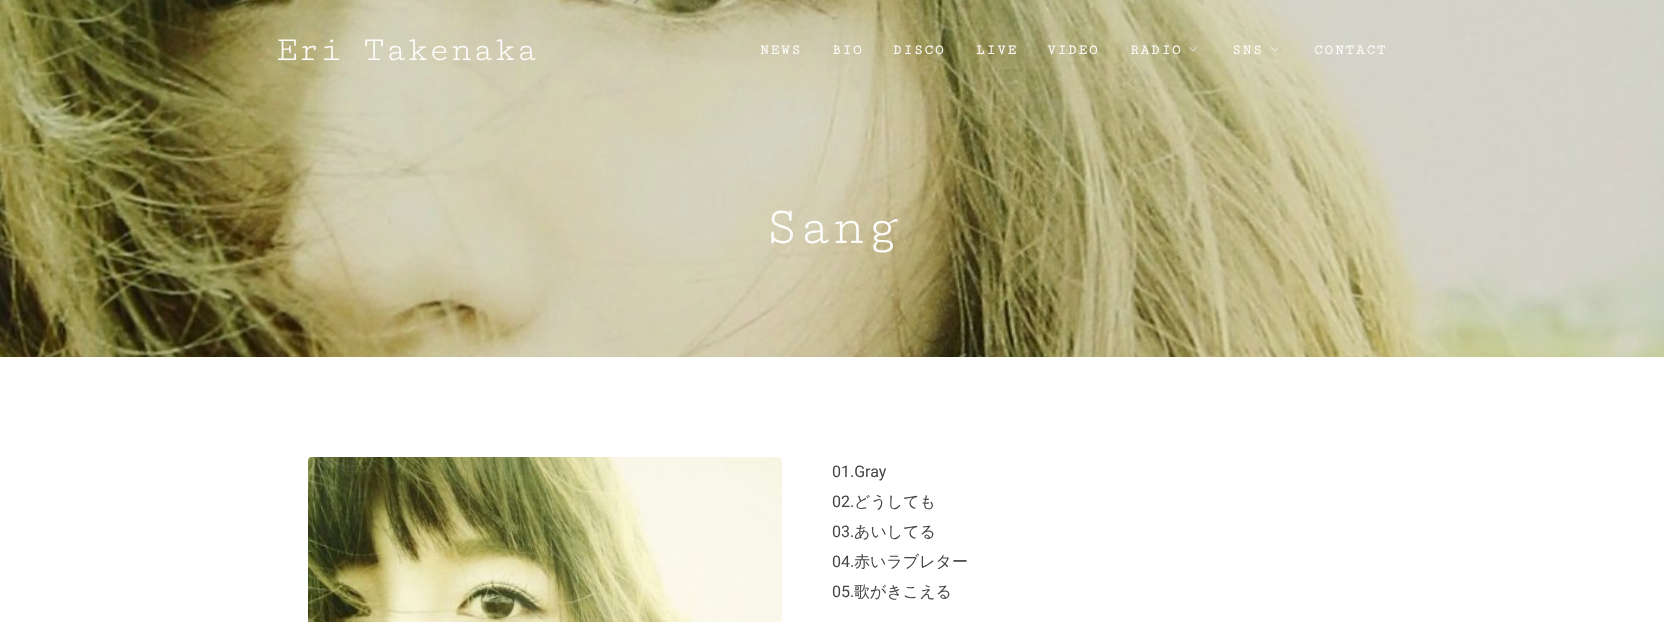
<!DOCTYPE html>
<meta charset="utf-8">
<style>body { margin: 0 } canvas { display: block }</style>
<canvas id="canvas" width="1664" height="622"></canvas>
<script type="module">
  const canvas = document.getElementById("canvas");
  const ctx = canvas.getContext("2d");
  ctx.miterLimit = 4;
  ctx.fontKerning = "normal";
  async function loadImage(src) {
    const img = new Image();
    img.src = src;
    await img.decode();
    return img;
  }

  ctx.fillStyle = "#ffffff";
  ctx.fillRect(0, 0, 1664, 622);
  ctx.drawImage(await loadImage("img3.png"), 0, 0, 1664, 357);
  ctx.font = "36px Cutive Mono";
  ctx.fillStyle = "#fcfcfa";
  ctx.fillText("Eri Takenaka", 276, 60);
  ctx.letterSpacing = "2px";
  ctx.font = "bold 14px Cutive Mono";
  ctx.fillText("NEWS", 760, 54);
  ctx.fillText("BIO", 832, 54);
  ctx.fillText("DISCO", 893, 54);
  ctx.fillText("LIVE", 976, 54);
  ctx.fillText("VIDEO", 1047, 54);
  ctx.fillText("RADIO", 1130, 54);
  ctx.drawImage(await loadImage("img1.png"), 1189, 47, 8, 5);
  ctx.fillText("SNS", 1232, 54);
  ctx.drawImage(await loadImage("img2.png"), 1271, 47, 8, 4);
  ctx.fillText("CONTACT", 1314, 54);
  ctx.letterSpacing = "0px";
  ctx.font = "56px Cutive Mono";
  ctx.fillText("Sang", 764, 243);
  ctx.drawImage(await loadImage("img4.png"), 308, 457, 474, 165);
  ctx.font = "16px Roboto";
  ctx.fillStyle = "#444444";
  ctx.fillText("01.Gray", 832, 477);
  ctx.fillText("02.", 832, 507);
  ctx.font = "500 16px WenQuanYi Zen Hei";
  ctx.fillText("どうしても", 854, 507);
  ctx.font = "16px Roboto";
  ctx.fillText("03.", 832, 537);
  ctx.font = "500 16px WenQuanYi Zen Hei";
  ctx.fillText("あいしてる", 854, 537);
  ctx.font = "16px Roboto";
  ctx.fillText("04.", 832, 567);
  ctx.font = "500 16px WenQuanYi Zen Hei";
  ctx.fillText("赤いラブレター", 854, 567);
  ctx.font = "16px Roboto";
  ctx.fillText("05.", 832, 597);
  ctx.font = "500 16px WenQuanYi Zen Hei";
  ctx.fillText("歌がきこえる", 854, 597);
</script>
